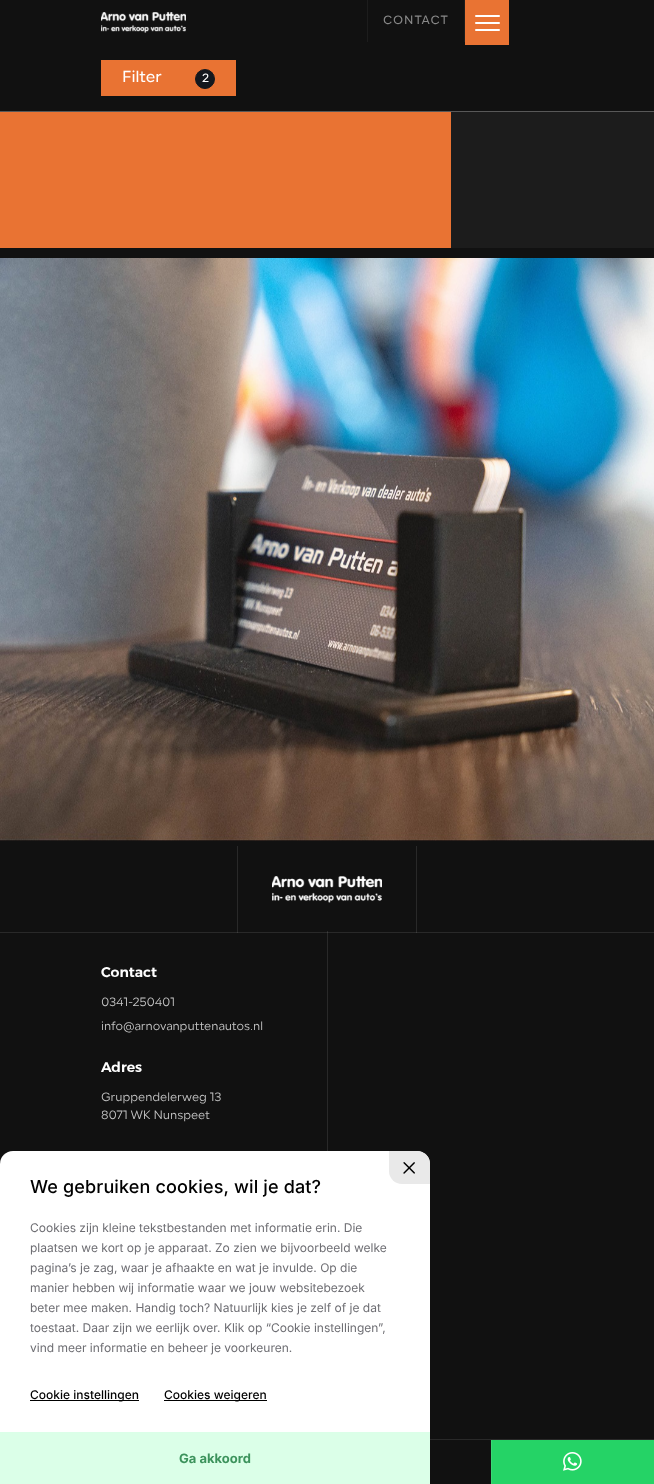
<!DOCTYPE html>
<meta charset="utf-8">
<style>body { margin: 0 } canvas { display: block }</style>
<canvas id="canvas" width="654" height="1484"></canvas>
<script type="module">
  const canvas = document.getElementById("canvas");
  const ctx = canvas.getContext("2d");
  ctx.miterLimit = 4;
  ctx.fontKerning = "normal";
  async function loadImage(src) {
    const img = new Image();
    img.src = src;
    await img.decode();
    return img;
  }

  ctx.fillStyle = "#1c1c1c";
  ctx.fillRect(0, 0, 654, 1484);
  ctx.fillStyle = "#111111";
  ctx.fillRect(0, 0, 654, 111);
  ctx.drawImage(await loadImage("img1.png"), 101, 12, 85, 21);
  ctx.fillStyle = "#1d1d1d";
  ctx.fillRect(464, 0, 1, 42);
  ctx.fillRect(367, 0, 1, 42);
  ctx.letterSpacing = "1px";
  ctx.font = "500 12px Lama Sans";
  ctx.fillStyle = "#888888";
  ctx.fillText("CONTACT", 383, 24);
  ctx.fillStyle = "#e97333";
  ctx.fillRect(465, 0, 44, 45);
  ctx.fillStyle = "#ffffff";
  ctx.beginPath();
  ctx.roundRect(475, 15, 25, 2, 1);
  ctx.fill();
  ctx.beginPath();
  ctx.roundRect(475, 22, 25, 2, 1);
  ctx.fill();
  ctx.beginPath();
  ctx.roundRect(475, 29, 25, 2, 1);
  ctx.fill();
  ctx.fillStyle = "#585858";
  ctx.fillRect(0, 111, 654, 1);
  ctx.fillStyle = "#e97333";
  ctx.fillRect(101, 60, 135, 36);
  ctx.letterSpacing = "0px";
  ctx.font = "500 16px Lama Sans";
  ctx.fillStyle = "#ffffff";
  ctx.fillText("Filter", 122, 82);
  ctx.fillStyle = "#14181e";
  ctx.beginPath();
  ctx.arc(205, 79, 9.5, 0, Math.PI * 2);
  ctx.fill();
  ctx.strokeStyle = "#14181e";
  ctx.stroke();
  ctx.font = "500 12px Lama Sans";
  ctx.fillStyle = "#ffffff";
  ctx.fillText("2", 202, 82);
  ctx.fillStyle = "#e97333";
  ctx.fillRect(0, 112, 451, 136);
  ctx.fillStyle = "#111111";
  ctx.fillRect(0, 248, 654, 1191);
  ctx.drawImage(await loadImage("img2.png"), 0, 258, 654, 583);
  ctx.fillStyle = "#292929";
  ctx.fillRect(0, 932, 654, 1);
  ctx.fillRect(416, 846, 1, 87);
  ctx.fillStyle = "#3e3e3e";
  ctx.fillRect(416, 932, 1, 1);
  ctx.fillStyle = "#292929";
  ctx.fillRect(237, 846, 1, 87);
  ctx.fillStyle = "#3e3e3e";
  ctx.fillRect(237, 932, 1, 1);
  ctx.drawImage(await loadImage("img3.png"), 272, 876, 110, 27);
  ctx.font = "600 14px Alexandria";
  ctx.fillStyle = "#ffffff";
  ctx.fillText("Contact", 101, 977);
  ctx.font = "12px Lama Sans";
  ctx.fillStyle = "#c4c4c4";
  ctx.fillText("0341-250401", 101, 1006);
  ctx.fillText("info@arnovanputtenautos.nl", 101, 1030);
  ctx.font = "600 14px Alexandria";
  ctx.fillStyle = "#ffffff";
  ctx.fillText("Adres", 101, 1072);
  ctx.font = "12px Lama Sans";
  ctx.fillStyle = "#c4c4c4";
  ctx.fillText("Gruppendelerweg 13", 101, 1101);
  ctx.fillText("8071 WK Nunspeet", 101, 1119);
  ctx.fillStyle = "#292929";
  ctx.fillRect(327, 931, 1, 220);
  ctx.fillStyle = "#3e3e3e";
  ctx.fillRect(327, 932, 1, 1);
  ctx.fillStyle = "#ffffff";
  ctx.beginPath();
  ctx.roundRect(0, 1151, 430, 333, [13, 13, 0, 0]);
  ctx.fill();
  ctx.fillStyle = "#e9e9e9";
  ctx.beginPath();
  ctx.roundRect(389, 1151, 41, 33, [0, 13, 0, 13]);
  ctx.fill();
  ctx.drawImage(await loadImage("img4.png"), 403, 1162, 12, 12);
  ctx.letterSpacing = "0.15px";
  ctx.font = "500 18px Inter";
  ctx.fillStyle = "#000000";
  ctx.fillText("We gebruiken cookies, wil je dat?", 30, 1193);
  ctx.letterSpacing = "0px";
  ctx.font = "12px Inter";
  ctx.fillStyle = "#6e6e73";
  ctx.fillText("Cookies zijn kleine tekstbestanden met informatie erin. Die", 30, 1232);
  ctx.fillText("plaatsen we kort op je apparaat. Zo zien we bijvoorbeeld welke", 30, 1252);
  ctx.fillText("pagina’s je zag, waar je afhaakte en wat je invulde. Op die", 30, 1272);
  ctx.fillText("manier hebben wij informatie waar we jouw websitebezoek", 30, 1292);
  ctx.fillText("beter mee maken. Handig toch? Natuurlijk kies je zelf of je dat", 30, 1312);
  ctx.fillText("toestaat. Daar zijn we eerlijk over. Klik op “Cookie instellingen”,", 30, 1332);
  ctx.fillText("vind meer informatie en beheer je voorkeuren.", 30, 1352);
  ctx.fillStyle = "#000000";
  ctx.fillRect(30, 1400, 109, 1);
  ctx.font = "500 12px Inter";
  ctx.fillText("Cookie instellingen", 30, 1399);
  ctx.fillRect(164, 1400, 103, 1);
  ctx.fillText("Cookies weigeren", 164, 1399);
  ctx.fillStyle = "#dbffe8";
  ctx.fillRect(0, 1432, 430, 52);
  ctx.font = "bold 13px Inter";
  ctx.fillStyle = "#3c935c";
  ctx.fillText("Ga akkoord", 179, 1463);
  ctx.fillStyle = "#111111";
  ctx.fillRect(430, 1440, 61, 44);
  ctx.fillStyle = "#292929";
  ctx.fillRect(430, 1439, 224, 1);
  ctx.fillStyle = "#25d366";
  ctx.fillRect(492, 1440, 162, 44);
  ctx.fillStyle = "#3bd775";
  ctx.fillRect(491, 1440, 1, 44);
  ctx.drawImage(await loadImage("img5.png"), 563, 1452, 19, 19);
</script>
